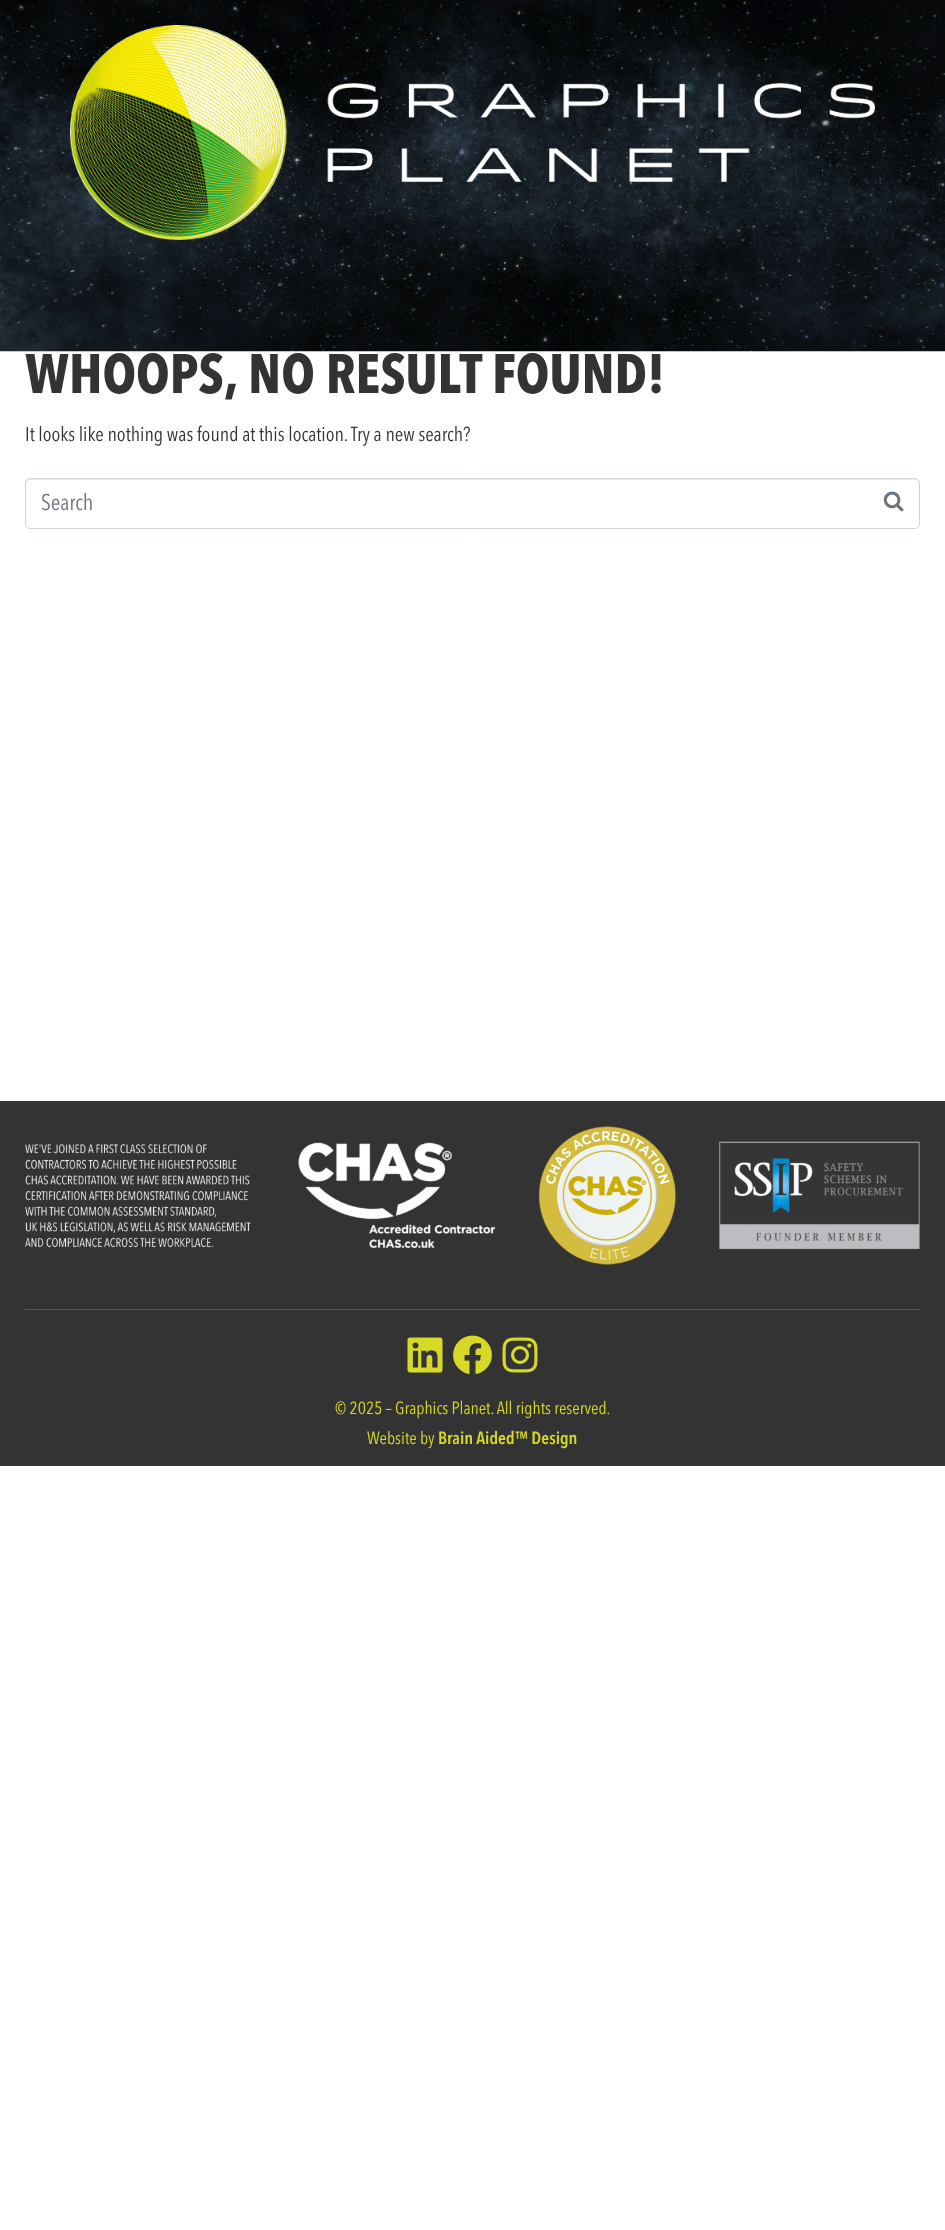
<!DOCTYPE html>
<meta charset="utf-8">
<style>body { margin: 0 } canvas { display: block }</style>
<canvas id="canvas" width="945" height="2230"></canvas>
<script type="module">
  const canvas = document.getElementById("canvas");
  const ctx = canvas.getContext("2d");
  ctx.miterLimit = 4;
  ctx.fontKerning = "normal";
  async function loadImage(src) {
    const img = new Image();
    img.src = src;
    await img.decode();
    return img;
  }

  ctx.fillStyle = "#ffffff";
  ctx.fillRect(0, 0, 945, 2230);
  ctx.drawImage(await loadImage("img1.png"), 0, 0, 945, 352);
  ctx.drawImage(await loadImage("img2.png"), 70, 25, 805, 215);
  ctx.font = "bold 55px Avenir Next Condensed";
  ctx.fillStyle = "#333333";
  ctx.fillText("WHOOPS, NO RESULT FOUND!", 25, 393);
  ctx.font = "20px Avenir Next Condensed";
  ctx.fillText("It looks like nothing was found at this location. Try a new search?", 25, 441);
  ctx.fillStyle = "#ececec";
  ctx.beginPath();
  ctx.moveTo(30, 480);
  ctx.lineTo(915, 480);
  ctx.bezierCurveTo(917, 480, 919, 482, 919, 484);
  ctx.bezierCurveTo(919, 481, 918, 479, 915, 479);
  ctx.lineTo(30, 479);
  ctx.bezierCurveTo(27, 479, 26, 481, 26, 484);
  ctx.bezierCurveTo(26, 482, 28, 480, 30, 480);
  ctx.closePath();
  ctx.fill();
  ctx.beginPath();
  ctx.roundRect(25.5, 478.5, 894, 50, 4.5);
  ctx.strokeStyle = "#ced4da";
  ctx.stroke();
  ctx.font = "22.5px Avenir Next Condensed";
  ctx.fillStyle = "#6c757d";
  ctx.fillText("Search", 41, 510);
  ctx.drawImage(await loadImage("img3.png"), 883, 491, 21, 21);
  ctx.fillStyle = "#333333";
  ctx.fillRect(0, 1101, 945, 365);
  ctx.drawImage(await loadImage("img4.png"), 25, 1126, 895, 139);
  ctx.fillStyle = "#585858";
  ctx.fillRect(25, 1309, 895, 1);
  ctx.drawImage(await loadImage("img5.png"), 407, 1337, 36, 36);
  ctx.drawImage(await loadImage("img6.png"), 453, 1335, 39, 40);
  ctx.drawImage(await loadImage("img7.png"), 502, 1337, 36, 36);
  ctx.font = "17.5px Avenir Next Condensed";
  ctx.fillStyle = "#d6da26";
  ctx.fillText("© 2025 – Graphics Planet. All rights reserved.", 335, 1414);
  ctx.fillText("Website by", 367, 1444);
  ctx.font = "600 17.5px Avenir Next Condensed";
  ctx.fillText("Brain Aided™ Design", 438, 1444);
</script>
